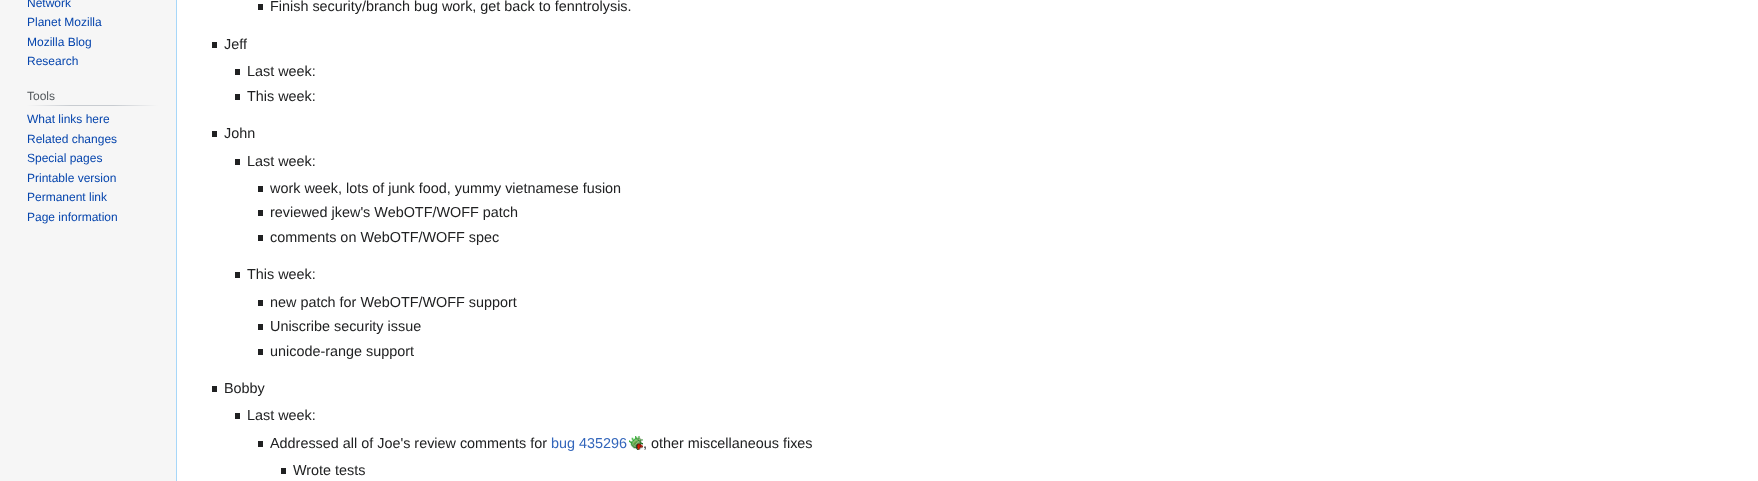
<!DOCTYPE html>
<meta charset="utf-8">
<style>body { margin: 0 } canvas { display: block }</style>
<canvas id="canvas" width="1758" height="481"></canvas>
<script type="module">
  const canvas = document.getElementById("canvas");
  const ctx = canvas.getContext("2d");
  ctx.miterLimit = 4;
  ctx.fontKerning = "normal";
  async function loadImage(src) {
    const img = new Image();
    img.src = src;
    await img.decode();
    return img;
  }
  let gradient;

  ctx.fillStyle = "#f6f6f6";
  ctx.fillRect(0, 0, 1758, 481);
  ctx.font = "12px Liberation Sans";
  ctx.fillStyle = "#0645ad";
  ctx.fillText("Network", 27, 7);
  ctx.fillText("Planet Mozilla", 27, 26);
  ctx.fillText("Mozilla Blog", 27, 46);
  ctx.fillText("Research", 27, 65);
  gradient = ctx.createLinearGradient(27, 106, 158, 106);
  gradient.addColorStop(0, "#f6f6f6");
  gradient.addColorStop(0.33, "#c8ccd1");
  gradient.addColorStop(0.66, "#c8ccd1");
  gradient.addColorStop(1, "#f6f6f6");
  ctx.fillStyle = gradient;
  ctx.fillRect(27, 105, 131, 1);
  ctx.fillStyle = "#54595d";
  ctx.fillText("Tools", 27, 100);
  ctx.fillStyle = "#0645ad";
  ctx.fillText("What links here", 27, 123);
  ctx.fillText("Related changes", 27, 143);
  ctx.fillText("Special pages", 27, 162);
  ctx.fillText("Printable version", 27, 182);
  ctx.fillText("Permanent link", 27, 201);
  ctx.fillText("Page information", 27, 221);
  ctx.fillStyle = "#ffffff";
  ctx.fillRect(177, 0, 1581, 481);
  ctx.fillStyle = "#a7d7f9";
  ctx.fillRect(176, 0, 1, 481);
  ctx.fillStyle = "#202122";
  ctx.fillRect(258, 4, 5, 6);
  ctx.font = "14.4px Liberation Sans";
  ctx.fillText("Finish security/branch bug work, get back to fenntrolysis.", 270, 11);
  ctx.fillRect(212, 42, 5, 6);
  ctx.fillText("Jeff", 224, 49);
  ctx.fillRect(235, 69, 5, 6);
  ctx.fillText("Last week:", 247, 76);
  ctx.fillRect(235, 94, 5, 6);
  ctx.fillText("This week:", 247, 101);
  ctx.fillRect(212, 131, 5, 6);
  ctx.fillText("John", 224, 138);
  ctx.fillRect(235, 159, 5, 6);
  ctx.fillText("Last week:", 247, 166);
  ctx.fillRect(258, 186, 5, 6);
  ctx.fillText("work week, lots of junk food, yummy vietnamese fusion", 270, 193);
  ctx.fillRect(258, 210, 5, 6);
  ctx.fillText("reviewed jkew's WebOTF/WOFF patch", 270, 217);
  ctx.fillRect(258, 235, 5, 6);
  ctx.fillText("comments on WebOTF/WOFF spec", 270, 242);
  ctx.fillRect(235, 272, 5, 6);
  ctx.fillText("This week:", 247, 279);
  ctx.fillRect(258, 300, 5, 6);
  ctx.fillText("new patch for WebOTF/WOFF support", 270, 307);
  ctx.fillRect(258, 324, 5, 6);
  ctx.fillText("Uniscribe security issue", 270, 331);
  ctx.fillRect(258, 349, 5, 6);
  ctx.fillText("unicode-range support", 270, 356);
  ctx.fillRect(212, 386, 5, 6);
  ctx.fillText("Bobby", 224, 393);
  ctx.fillRect(235, 413, 5, 6);
  ctx.fillText("Last week:", 247, 420);
  ctx.fillRect(258, 441, 5, 6);
  ctx.fillText("Addressed all of Joe's review comments for", 270, 448);
  ctx.fillStyle = "#3366bb";
  ctx.fillText("bug 435296", 551, 448);
  ctx.drawImage(await loadImage("img1.png"), 629, 436, 14, 14);
  ctx.fillStyle = "#202122";
  ctx.fillText(", other miscellaneous fixes", 643, 448);
  ctx.fillRect(281, 468, 5, 6);
  ctx.fillText("Wrote tests", 293, 475);
</script>
